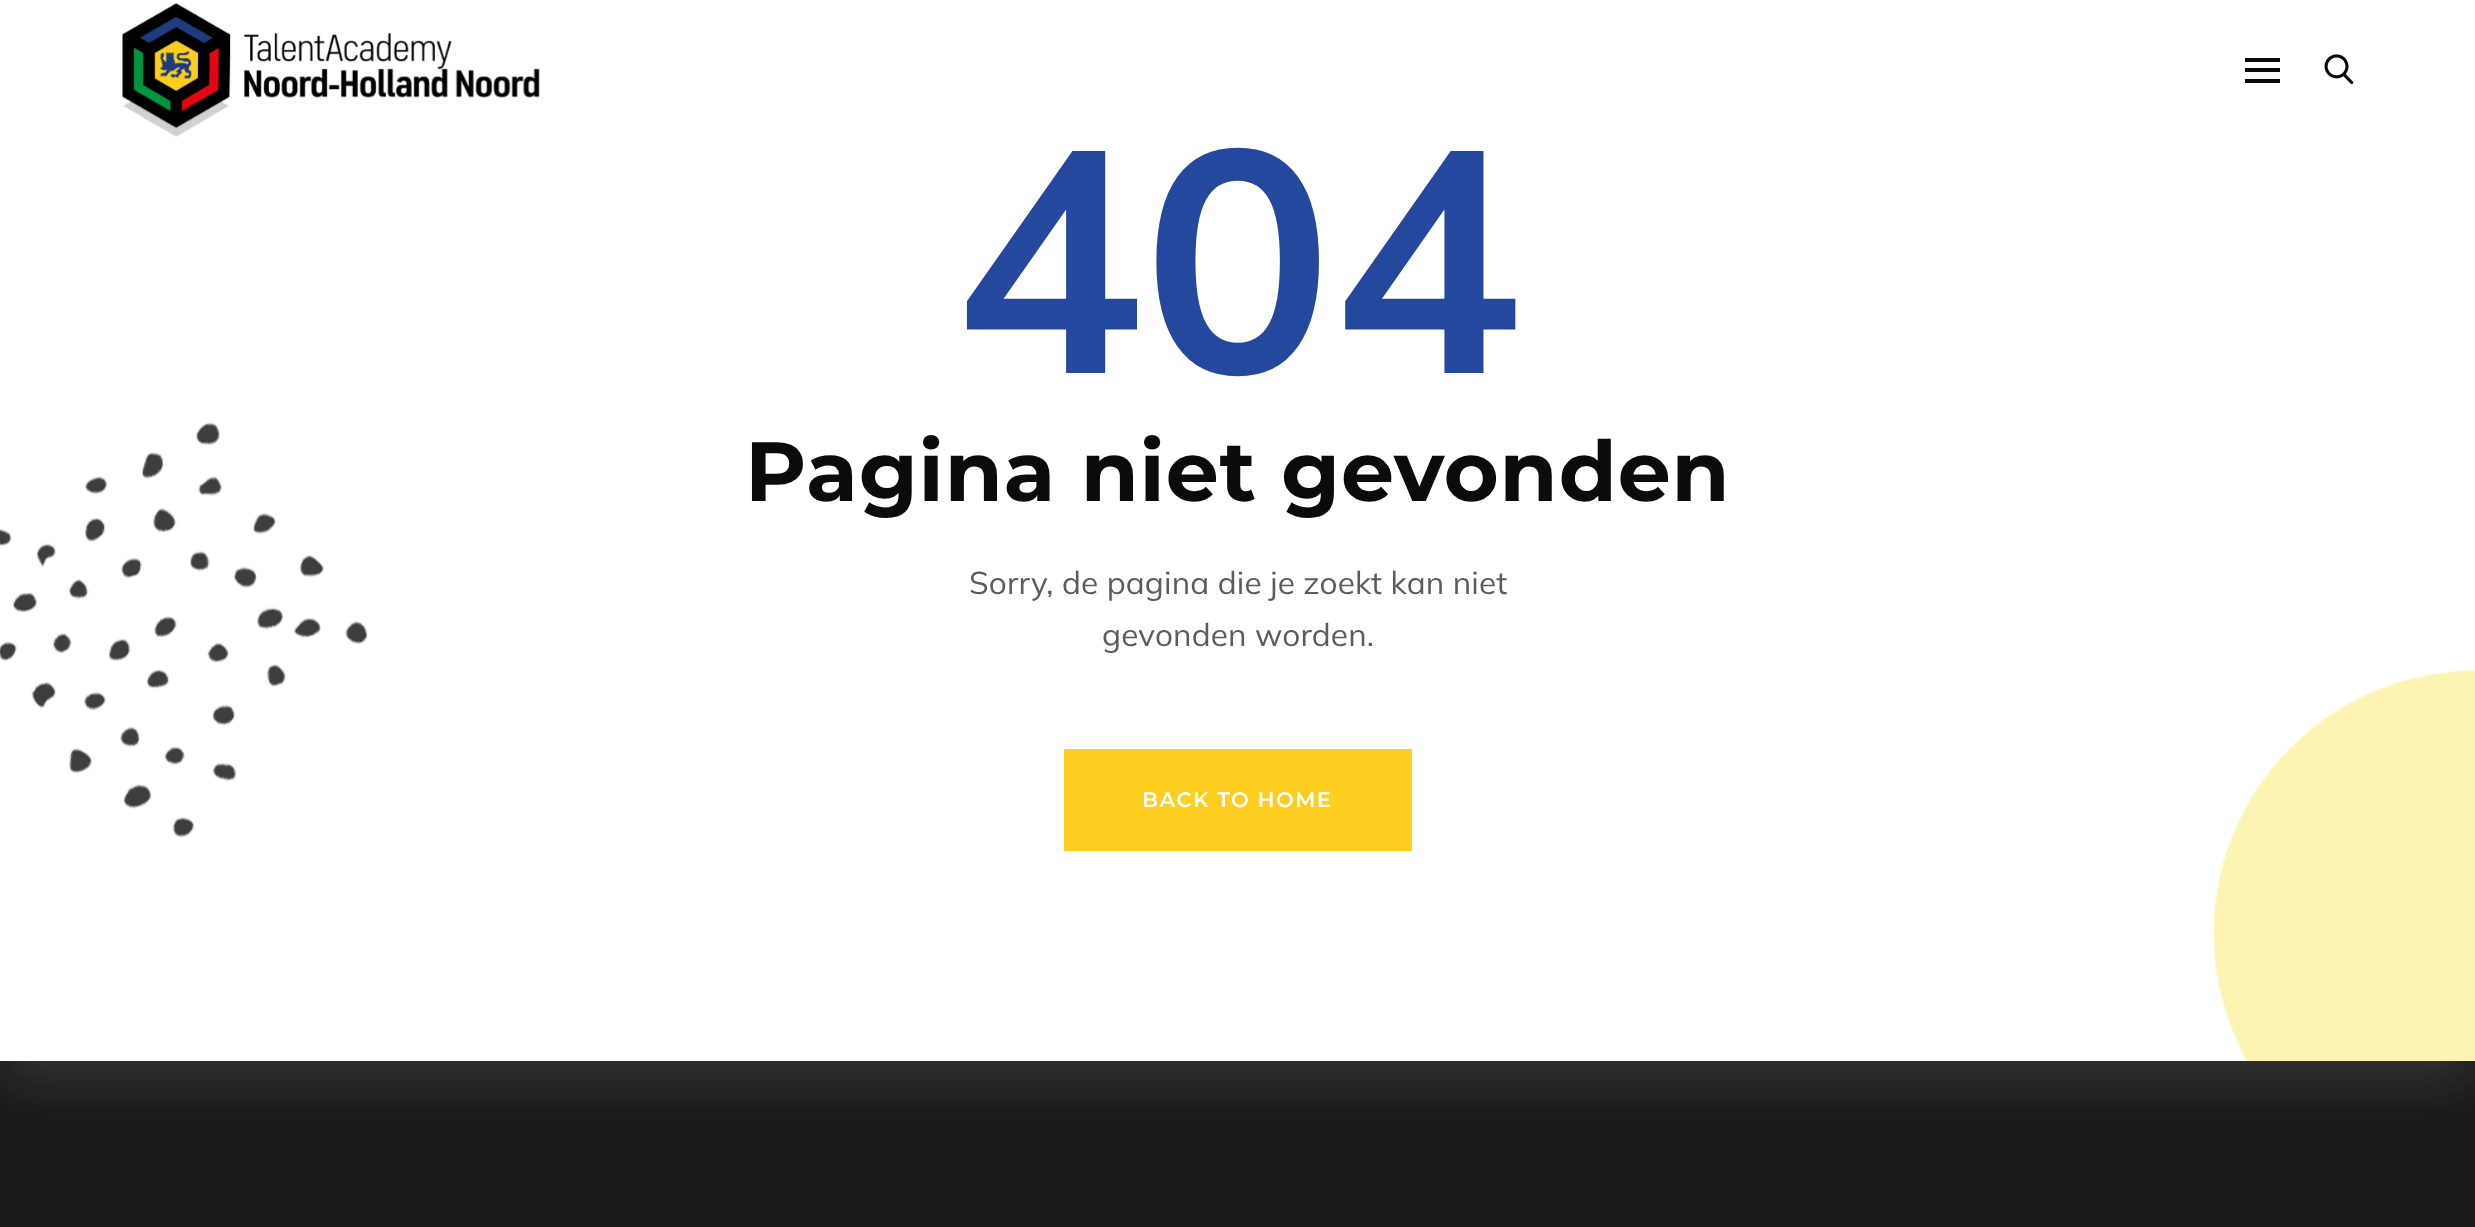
<!DOCTYPE html>
<meta charset="utf-8">
<style>body { margin: 0 } canvas { display: block }</style>
<canvas id="canvas" width="2475" height="1227"></canvas>
<script type="module">
  const canvas = document.getElementById("canvas");
  const ctx = canvas.getContext("2d");
  ctx.miterLimit = 4;
  ctx.fontKerning = "normal";
  async function loadImage(src) {
    const img = new Image();
    img.src = src;
    await img.decode();
    return img;
  }

  ctx.fillStyle = "#191919";
  ctx.fillRect(0, 0, 2475, 1227);
  ctx.fillStyle = "rgba(255, 255, 255, 0.1)";
  ctx.filter = "blur(26px)";
  ctx.beginPath();
  ctx.rect(0, 18, 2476, 1069);
  ctx.fill();
  ctx.filter = "none";
  ctx.fillStyle = "#ffffff";
  ctx.fillRect(0, 0, 2475, 1061);
  ctx.drawImage(await loadImage("img1.png"), 122, 3, 418, 134);
  ctx.fillStyle = "#0a0a0a";
  ctx.fillRect(2245, 58, 35, 4);
  ctx.fillRect(2245, 68, 35, 4);
  ctx.fillRect(2245, 79, 35, 4);
  ctx.drawImage(await loadImage("img2.png"), 2324, 54, 30, 31);
  ctx.drawImage(await loadImage("img3.png"), 0, 422, 368, 416);
  ctx.letterSpacing = "0.15px";
  ctx.font = "bold 315px Mulish";
  ctx.fillStyle = "#24489e";
  ctx.fillText("404", 954, 373);
  ctx.letterSpacing = "0.8px";
  ctx.font = "bold 84px Montserrat";
  ctx.fillStyle = "#0b0b0b";
  ctx.fillText("Pagina niet gevonden", 745, 501);
  ctx.letterSpacing = "0.15px";
  ctx.font = "31.5px Mulish";
  ctx.fillStyle = "#5c5c5c";
  ctx.fillText("Sorry, de pagina die je zoekt kan niet", 969, 594);
  ctx.fillText("gevonden worden.", 1102, 646);
  ctx.fillStyle = "#fece20";
  ctx.fillRect(1064, 749, 348, 102);
  ctx.letterSpacing = "1.5px";
  ctx.font = "600 21px Montserrat";
  ctx.fillStyle = "#ffffff";
  ctx.fillText("BACK TO HOME", 1142, 807);
  ctx.drawImage(await loadImage("img4.png"), 2214, 670, 261, 391);
</script>
